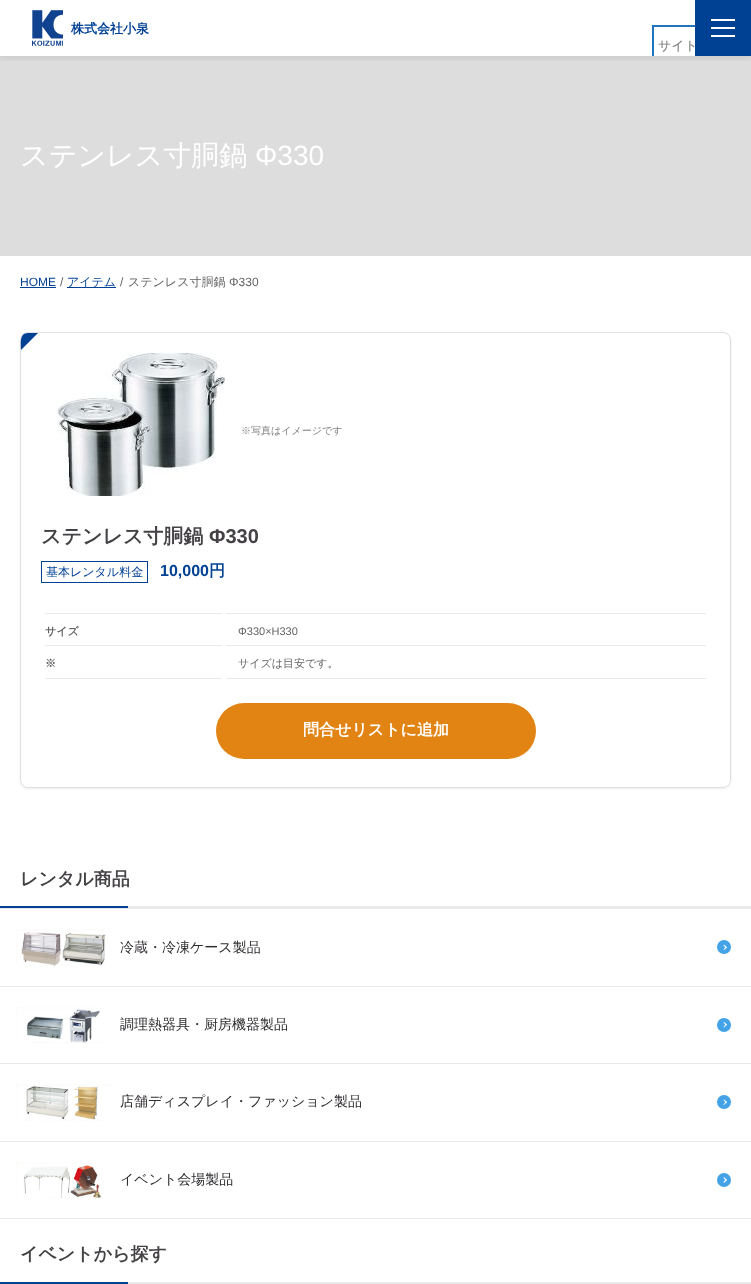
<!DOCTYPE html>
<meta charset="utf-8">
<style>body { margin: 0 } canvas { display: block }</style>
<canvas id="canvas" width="751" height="1284"></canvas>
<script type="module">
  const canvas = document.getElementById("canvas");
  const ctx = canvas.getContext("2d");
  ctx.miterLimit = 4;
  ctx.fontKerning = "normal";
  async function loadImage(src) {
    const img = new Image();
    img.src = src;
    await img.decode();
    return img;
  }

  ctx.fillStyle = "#ffffff";
  ctx.fillRect(0, 0, 751, 1284);
  ctx.fillStyle = "#dddddd";
  ctx.fillRect(0, 56, 751, 200);
  ctx.save();
  ctx.beginPath();
  ctx.rect(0, 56, 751, 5);
  ctx.clip();
  ctx.fillStyle = "rgba(0, 0, 0, 0.1)";
  ctx.filter = "blur(4px)";
  ctx.beginPath();
  ctx.rect(0, 2, 751, 56);
  ctx.fill();
  ctx.filter = "none";
  ctx.restore();
  ctx.drawImage(await loadImage("img1.png"), 32, 10, 31, 36);
  ctx.font = "bold 13px WenQuanYi Zen Hei";
  ctx.fillStyle = "#004194";
  ctx.fillText("株式会社小泉", 71, 33);
  ctx.save();
  ctx.beginPath();
  ctx.rect(0, 0, 751, 56);
  ctx.clip();
  ctx.strokeStyle = "#1f74bf";
  ctx.lineWidth = 2;
  ctx.strokeRect(653, 26, 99, 38);
  ctx.restore();
  ctx.font = "500 13px WenQuanYi Zen Hei";
  ctx.fillStyle = "#757575";
  ctx.fillText("サイト", 658, 50);
  ctx.fillStyle = "#004194";
  ctx.fillRect(695, 0, 56, 56);
  ctx.fillStyle = "#ffffff";
  ctx.fillRect(711, 27, 24, 2);
  ctx.fillRect(711, 19, 24, 2);
  ctx.fillRect(711, 35, 24, 2);
  ctx.font = "500 28px WenQuanYi Zen Hei";
  ctx.fillText("ステンレス寸胴鍋", 20, 165);
  ctx.font = "28px Liberation Sans";
  ctx.fillText("Φ330", 255, 165);
  ctx.font = "12px Liberation Sans";
  ctx.fillStyle = "#004194";
  ctx.fillText("HOME", 20, 286);
  ctx.fillRect(20, 287, 36, 1);
  ctx.fillStyle = "#646265";
  ctx.fillText("/", 60, 286);
  ctx.fillStyle = "#004194";
  ctx.fillRect(67, 287, 49, 1);
  ctx.font = "500 12px WenQuanYi Zen Hei";
  ctx.fillText("アイテム", 67, 286);
  ctx.font = "12px Liberation Sans";
  ctx.fillStyle = "#646265";
  ctx.fillText("/", 120, 286);
  ctx.font = "500 12px WenQuanYi Zen Hei";
  ctx.fillText("ステンレス寸胴鍋", 128, 286);
  ctx.font = "12px Liberation Sans";
  ctx.fillText("Φ330", 229, 286);
  ctx.save();
  ctx.beginPath();
  ctx.moveTo(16, 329);
  ctx.lineTo(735, 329);
  ctx.lineTo(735, 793);
  ctx.lineTo(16, 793);
  ctx.closePath();
  ctx.moveTo(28, 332);
  ctx.lineTo(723, 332);
  ctx.bezierCurveTo(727.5, 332, 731, 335.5, 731, 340);
  ctx.lineTo(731, 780);
  ctx.bezierCurveTo(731, 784.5, 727.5, 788, 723, 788);
  ctx.lineTo(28, 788);
  ctx.bezierCurveTo(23.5, 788, 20, 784.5, 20, 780);
  ctx.lineTo(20, 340);
  ctx.bezierCurveTo(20, 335.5, 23.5, 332, 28, 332);
  ctx.closePath();
  ctx.clip("evenodd");
  ctx.fillStyle = "rgba(0, 0, 0, 0.07)";
  ctx.filter = "blur(1px)";
  ctx.beginPath();
  ctx.roundRect(20, 333, 711, 456, 8);
  ctx.fill();
  ctx.filter = "none";
  ctx.restore();
  ctx.beginPath();
  ctx.roundRect(20.5, 332.5, 710, 455, 7.5);
  ctx.strokeStyle = "rgba(48, 45, 49, 0.15)";
  ctx.stroke();
  ctx.fillStyle = "#004194";
  ctx.beginPath();
  ctx.moveTo(28, 333);
  ctx.bezierCurveTo(19, 333, 21, 344, 21, 350);
  ctx.lineTo(38, 333);
  ctx.closePath();
  ctx.fill();
  ctx.drawImage(await loadImage("img2.png"), 57, 353, 168, 143);
  ctx.font = "500 10px WenQuanYi Zen Hei";
  ctx.fillStyle = "#838183";
  ctx.fillText("※写真はイメージです", 241, 434);
  ctx.font = "bold 20px WenQuanYi Zen Hei";
  ctx.fillStyle = "#454246";
  ctx.fillText("ステンレス寸胴鍋", 41, 543);
  ctx.font = "bold 20px Liberation Sans";
  ctx.fillText("Φ330", 209, 543);
  ctx.strokeStyle = "#004194";
  ctx.strokeRect(41.5, 561.5, 106, 21);
  ctx.font = "500 12px WenQuanYi Zen Hei";
  ctx.fillStyle = "#004194";
  ctx.fillText("基本レンタル料金", 46, 576);
  ctx.font = "bold 16px Liberation Sans";
  ctx.fillText("10,000", 160, 576);
  ctx.font = "bold 16px WenQuanYi Zen Hei";
  ctx.fillText("円", 209, 576);
  ctx.fillStyle = "#eaeaea";
  ctx.fillRect(45, 613, 177, 1);
  ctx.fillRect(45, 645, 177, 1);
  ctx.font = "bold 11px WenQuanYi Zen Hei";
  ctx.fillStyle = "#646265";
  ctx.fillText("サイズ", 45, 635);
  ctx.fillStyle = "#eaeaea";
  ctx.fillRect(226, 613, 480, 1);
  ctx.fillRect(226, 645, 480, 1);
  ctx.font = "11px Liberation Sans";
  ctx.fillStyle = "#646265";
  ctx.fillText("Φ330×H330", 238, 635);
  ctx.fillStyle = "#eaeaea";
  ctx.fillRect(45, 678, 177, 1);
  ctx.font = "bold 11px WenQuanYi Zen Hei";
  ctx.fillStyle = "#646265";
  ctx.fillText("※", 45, 667);
  ctx.fillStyle = "#eaeaea";
  ctx.fillRect(226, 678, 480, 1);
  ctx.font = "500 11px WenQuanYi Zen Hei";
  ctx.fillStyle = "#646265";
  ctx.fillText("サイズは目安です。", 238, 667);
  ctx.fillStyle = "#e28413";
  ctx.beginPath();
  ctx.roundRect(216, 703, 320, 56, 28);
  ctx.fill();
  ctx.font = "bold 16px WenQuanYi Zen Hei";
  ctx.fillStyle = "#ffffff";
  ctx.fillText("問合せリストに追加", 303, 735);
  ctx.fillStyle = "#eaeaea";
  ctx.fillRect(128, 906, 623, 2);
  ctx.font = "bold 18px WenQuanYi Zen Hei";
  ctx.fillStyle = "#454246";
  ctx.fillText("レンタル商品", 20, 885);
  ctx.fillStyle = "#004194";
  ctx.fillRect(0, 906, 128, 2);
  ctx.fillStyle = "#eaeaea";
  ctx.fillRect(0, 908, 751, 1);
  ctx.fillRect(0, 986, 751, 1);
  ctx.drawImage(await loadImage("img3.png"), 16, 929, 90, 37);
  ctx.font = "500 14px WenQuanYi Zen Hei";
  ctx.fillStyle = "#302d31";
  ctx.fillText("冷蔵・冷凍ケース製品", 120, 952);
  ctx.fillStyle = "#44a2e7";
  ctx.beginPath();
  ctx.arc(724, 947, 7, 0, Math.PI * 2);
  ctx.fill();
  ctx.fillStyle = "#ffffff";
  ctx.beginPath();
  ctx.moveTo(724, 944.5);
  ctx.lineTo(727, 947.5);
  ctx.lineTo(726, 948);
  ctx.lineTo(723.5, 945.5);
  ctx.closePath();
  ctx.fill();
  ctx.beginPath();
  ctx.moveTo(726, 946.5);
  ctx.lineTo(727, 947.5);
  ctx.lineTo(724, 950);
  ctx.lineTo(723.5, 949.5);
  ctx.closePath();
  ctx.fill();
  ctx.fillStyle = "#eaeaea";
  ctx.fillRect(0, 1063, 751, 1);
  ctx.drawImage(await loadImage("img4.png"), 16, 1007, 86, 36);
  ctx.fillStyle = "#302d31";
  ctx.fillText("調理熱器具・厨房機器製品", 120, 1029);
  ctx.fillStyle = "#44a2e7";
  ctx.beginPath();
  ctx.arc(724, 1025, 7, 0, Math.PI * 2);
  ctx.fill();
  ctx.fillStyle = "#ffffff";
  ctx.beginPath();
  ctx.moveTo(724, 1022);
  ctx.lineTo(727, 1024.5);
  ctx.lineTo(726, 1025.5);
  ctx.lineTo(723.5, 1022.5);
  ctx.closePath();
  ctx.fill();
  ctx.beginPath();
  ctx.moveTo(726, 1024);
  ctx.lineTo(727, 1024.5);
  ctx.lineTo(724, 1027.5);
  ctx.lineTo(723.5, 1027);
  ctx.closePath();
  ctx.fill();
  ctx.fillStyle = "#eaeaea";
  ctx.fillRect(0, 1141, 751, 1);
  ctx.drawImage(await loadImage("img5.png"), 16, 1084, 96, 37);
  ctx.fillStyle = "#302d31";
  ctx.fillText("店舗ディスプレイ・ファッション製品", 120, 1106);
  ctx.fillStyle = "#44a2e7";
  ctx.beginPath();
  ctx.arc(724, 1102, 7, 0, Math.PI * 2);
  ctx.fill();
  ctx.fillStyle = "#ffffff";
  ctx.beginPath();
  ctx.moveTo(724, 1099.5);
  ctx.lineTo(727, 1102);
  ctx.lineTo(726, 1103);
  ctx.lineTo(723.5, 1100);
  ctx.closePath();
  ctx.fill();
  ctx.beginPath();
  ctx.moveTo(726, 1101.5);
  ctx.lineTo(727, 1102);
  ctx.lineTo(724, 1105);
  ctx.lineTo(723.5, 1104.5);
  ctx.closePath();
  ctx.fill();
  ctx.fillStyle = "#eaeaea";
  ctx.fillRect(0, 1218, 751, 1);
  ctx.drawImage(await loadImage("img6.png"), 16, 1162, 85, 36);
  ctx.fillStyle = "#302d31";
  ctx.fillText("イベント会場製品", 120, 1184);
  ctx.fillStyle = "#44a2e7";
  ctx.beginPath();
  ctx.arc(724, 1180, 7, 0, Math.PI * 2);
  ctx.fill();
  ctx.fillStyle = "#ffffff";
  ctx.beginPath();
  ctx.moveTo(724, 1177);
  ctx.lineTo(727, 1180);
  ctx.lineTo(726, 1180.5);
  ctx.lineTo(723.5, 1178);
  ctx.closePath();
  ctx.fill();
  ctx.beginPath();
  ctx.moveTo(726, 1179);
  ctx.lineTo(727, 1180);
  ctx.lineTo(724, 1183);
  ctx.lineTo(723.5, 1182);
  ctx.closePath();
  ctx.fill();
  ctx.fillStyle = "#eaeaea";
  ctx.fillRect(128, 1282, 623, 2);
  ctx.font = "bold 18px WenQuanYi Zen Hei";
  ctx.fillStyle = "#454246";
  ctx.fillText("イベントから探す", 20, 1260);
  ctx.fillStyle = "#004194";
  ctx.fillRect(0, 1282, 128, 2);
</script>
